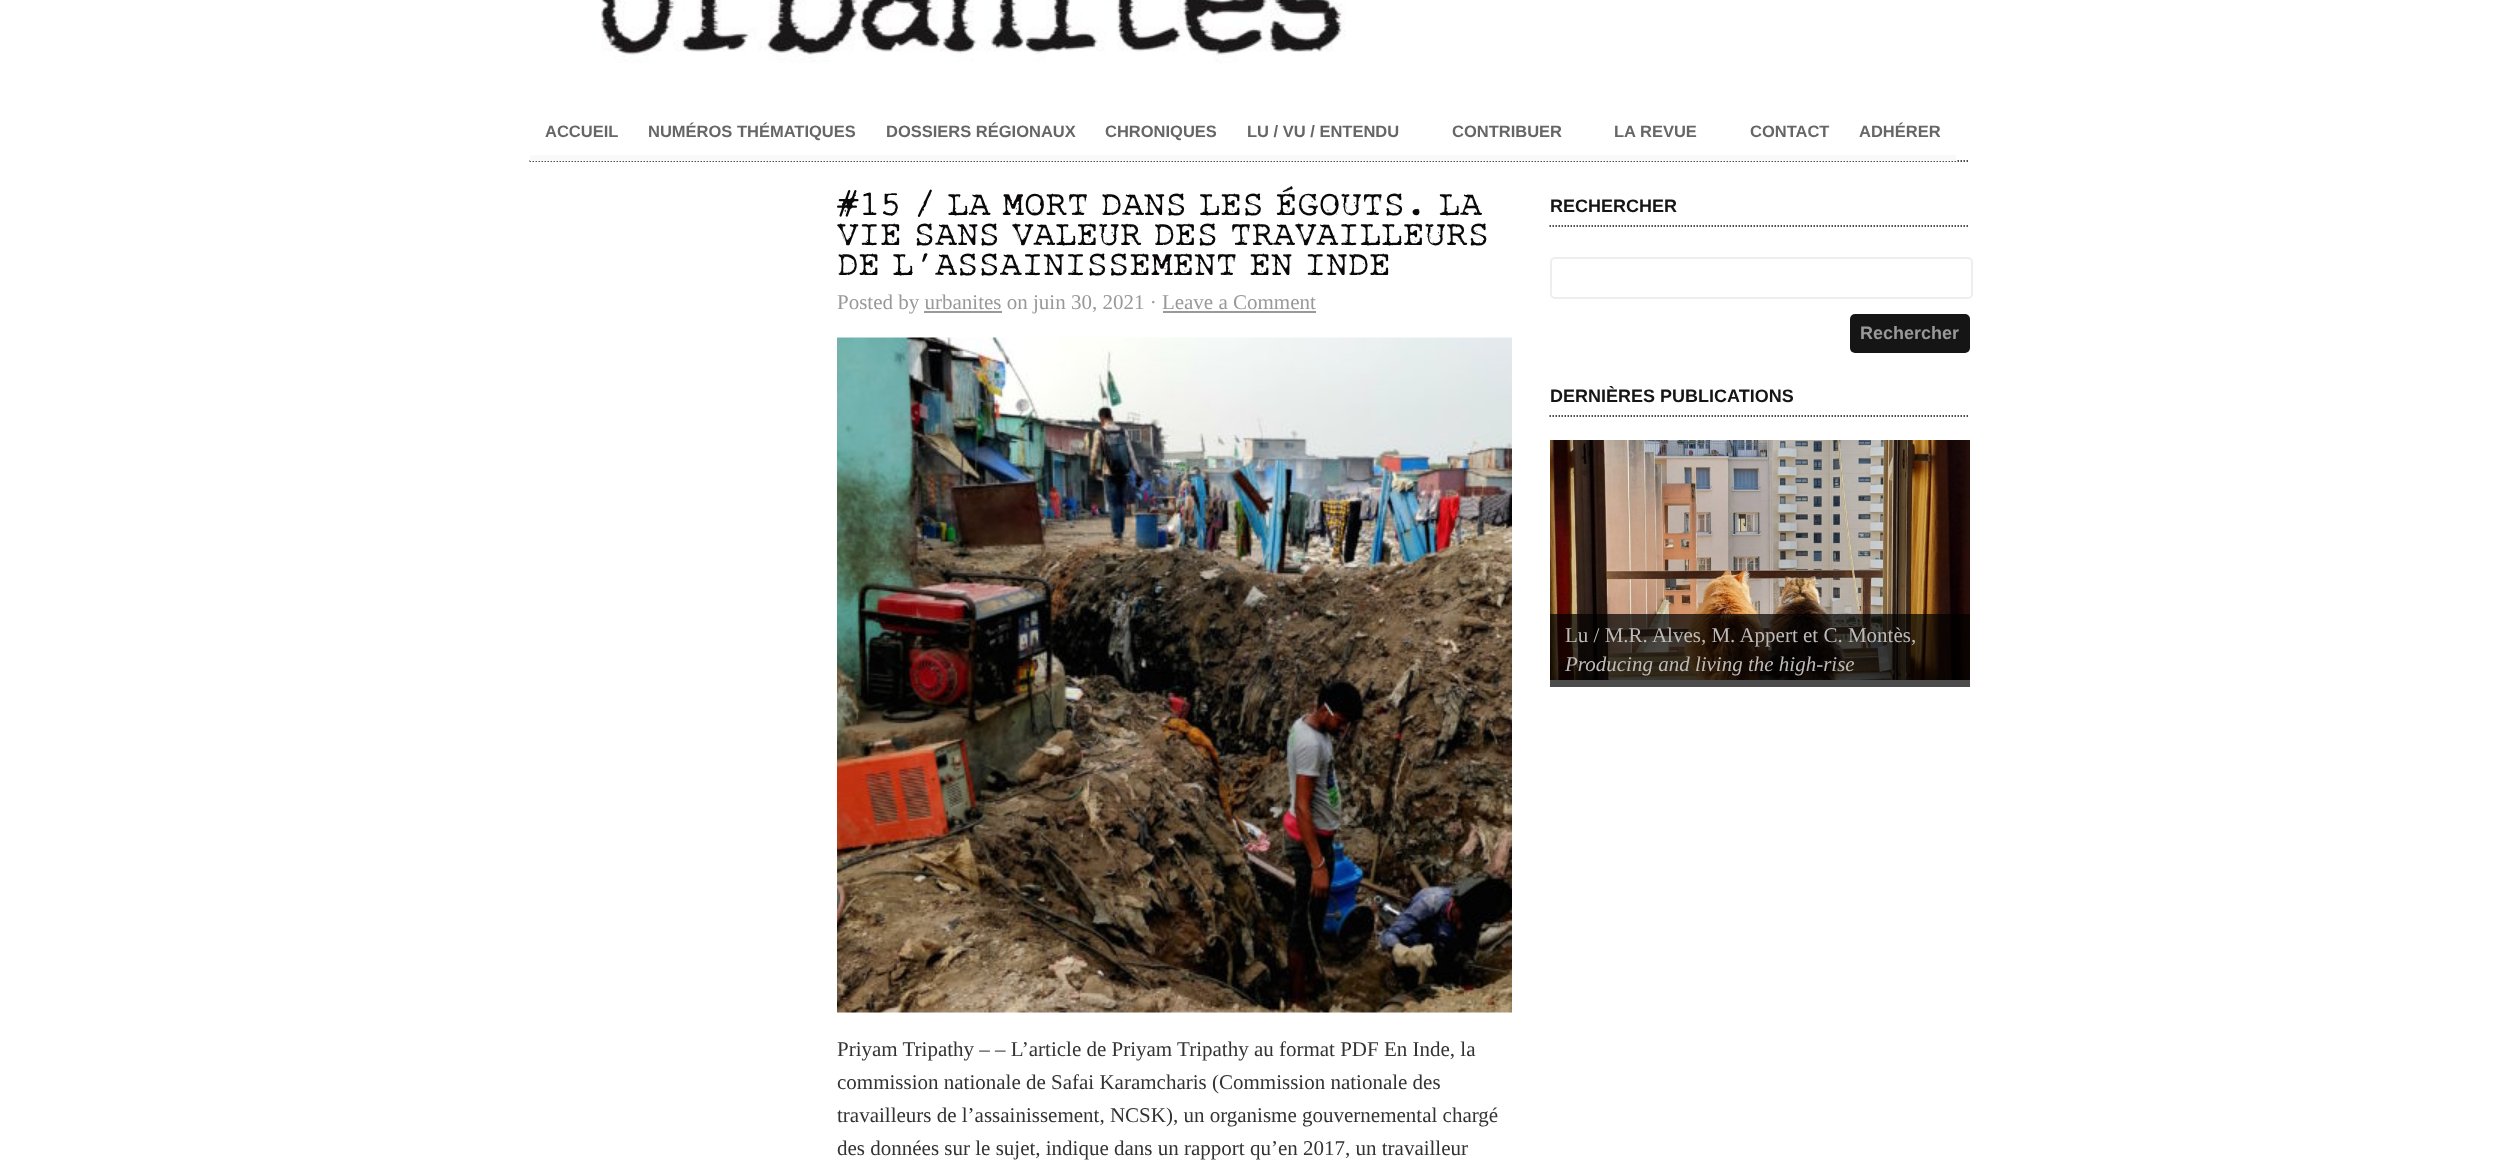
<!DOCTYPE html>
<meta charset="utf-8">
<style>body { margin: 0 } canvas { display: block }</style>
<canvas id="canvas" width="2499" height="1169"></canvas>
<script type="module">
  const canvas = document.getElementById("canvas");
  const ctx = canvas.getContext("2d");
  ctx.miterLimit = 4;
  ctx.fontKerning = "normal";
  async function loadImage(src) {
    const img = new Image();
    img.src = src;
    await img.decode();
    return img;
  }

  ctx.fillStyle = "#ffffff";
  ctx.fillRect(0, 0, 2499, 1169);
  ctx.drawImage(await loadImage("img1.png"), 601, 0, 745, 63);
  ctx.beginPath();
  ctx.moveTo(529.5, 161);
  ctx.lineTo(1969.5, 161);
  ctx.strokeStyle = "#151515";
  ctx.lineWidth = 1.5;
  ctx.setLineDash([1.5, 1.5]);
  ctx.stroke();
  ctx.fillStyle = "#f9f9f9";
  ctx.fillRect(530, 155, 1426, 6);
  ctx.font = "bold 16.5px Liberation Sans";
  ctx.fillStyle = "#666666";
  ctx.fillText("ACCUEIL", 545, 137);
  ctx.fillText("NUMÉROS THÉMATIQUES", 648, 137);
  ctx.fillText("DOSSIERS RÉGIONAUX", 886, 137);
  ctx.fillText("CHRONIQUES", 1105, 137);
  ctx.fillText("LU / VU / ENTENDU", 1247, 137);
  ctx.fillText("CONTRIBUER", 1452, 137);
  ctx.fillText("LA REVUE", 1614, 137);
  ctx.fillText("CONTACT", 1750, 137);
  ctx.fillText("ADHÉRER", 1859, 137);
  ctx.font = "36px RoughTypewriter";
  ctx.fillStyle = "#0a0808";
  ctx.fillText("#15 / LA MORT DANS LES ÉGOUTS. LA", 837, 215);
  ctx.fillText("VIE SANS VALEUR DES TRAVAILLEURS", 837, 245);
  ctx.fillText("DE L’ASSAINISSEMENT EN INDE", 837, 275);
  ctx.font = "21px Liberation Serif";
  ctx.fillStyle = "#999999";
  ctx.fillText("Posted by urbanites on juin 30, 2021 · Leave a Comment", 837, 309);
  ctx.fillRect(924, 311, 78, 2);
  ctx.fillRect(1163, 311, 153, 2);
  ctx.drawImage(await loadImage("img2.png"), 837, 337, 675, 676);
  ctx.fillStyle = "#333333";
  ctx.fillText("Priyam Tripathy – – L’article de Priyam Tripathy au format PDF En Inde, la", 837, 1056);
  ctx.fillText("commission nationale de Safai Karamcharis (Commission nationale des", 837, 1089);
  ctx.fillText("travailleurs de l’assainissement, NCSK), un organisme gouvernemental chargé", 837, 1122);
  ctx.fillText("des données sur le sujet, indique dans un rapport qu’en 2017, un travailleur", 837, 1155);
  ctx.beginPath();
  ctx.moveTo(1549.5, 226);
  ctx.lineTo(1969.5, 226);
  ctx.stroke();
  ctx.font = "bold 18px Liberation Sans";
  ctx.fillStyle = "#151515";
  ctx.fillText("RECHERCHER", 1550, 212);
  ctx.beginPath();
  ctx.roundRect(1551, 258, 421, 40, 4);
  ctx.strokeStyle = "#eeeeee";
  ctx.lineWidth = 2;
  ctx.setLineDash([]);
  ctx.stroke();
  ctx.beginPath();
  ctx.roundRect(1850, 314, 120, 39, 5);
  ctx.fill();
  ctx.fillStyle = "#999999";
  ctx.fillText("Rechercher", 1860, 339);
  ctx.beginPath();
  ctx.moveTo(1549.5, 416);
  ctx.lineTo(1969.5, 416);
  ctx.strokeStyle = "#151515";
  ctx.lineWidth = 1.5;
  ctx.setLineDash([1.5, 1.5]);
  ctx.stroke();
  ctx.fillStyle = "#151515";
  ctx.fillText("DERNIÈRES PUBLICATIONS", 1550, 402);
  ctx.drawImage(await loadImage("img3.png"), 1550, 440, 420, 240);
  ctx.fillStyle = "rgba(0, 0, 0, 0.7)";
  ctx.fillRect(1550, 614, 420, 73);
  ctx.font = "21px Liberation Serif";
  ctx.fillStyle = "#bdbab8";
  ctx.fillText("Lu / M.R. Alves, M. Appert et C. Montès,", 1565, 642);
  ctx.font = "italic 21px Liberation Serif";
  ctx.fillText("Producing and living the high-rise", 1565, 671);
</script>
